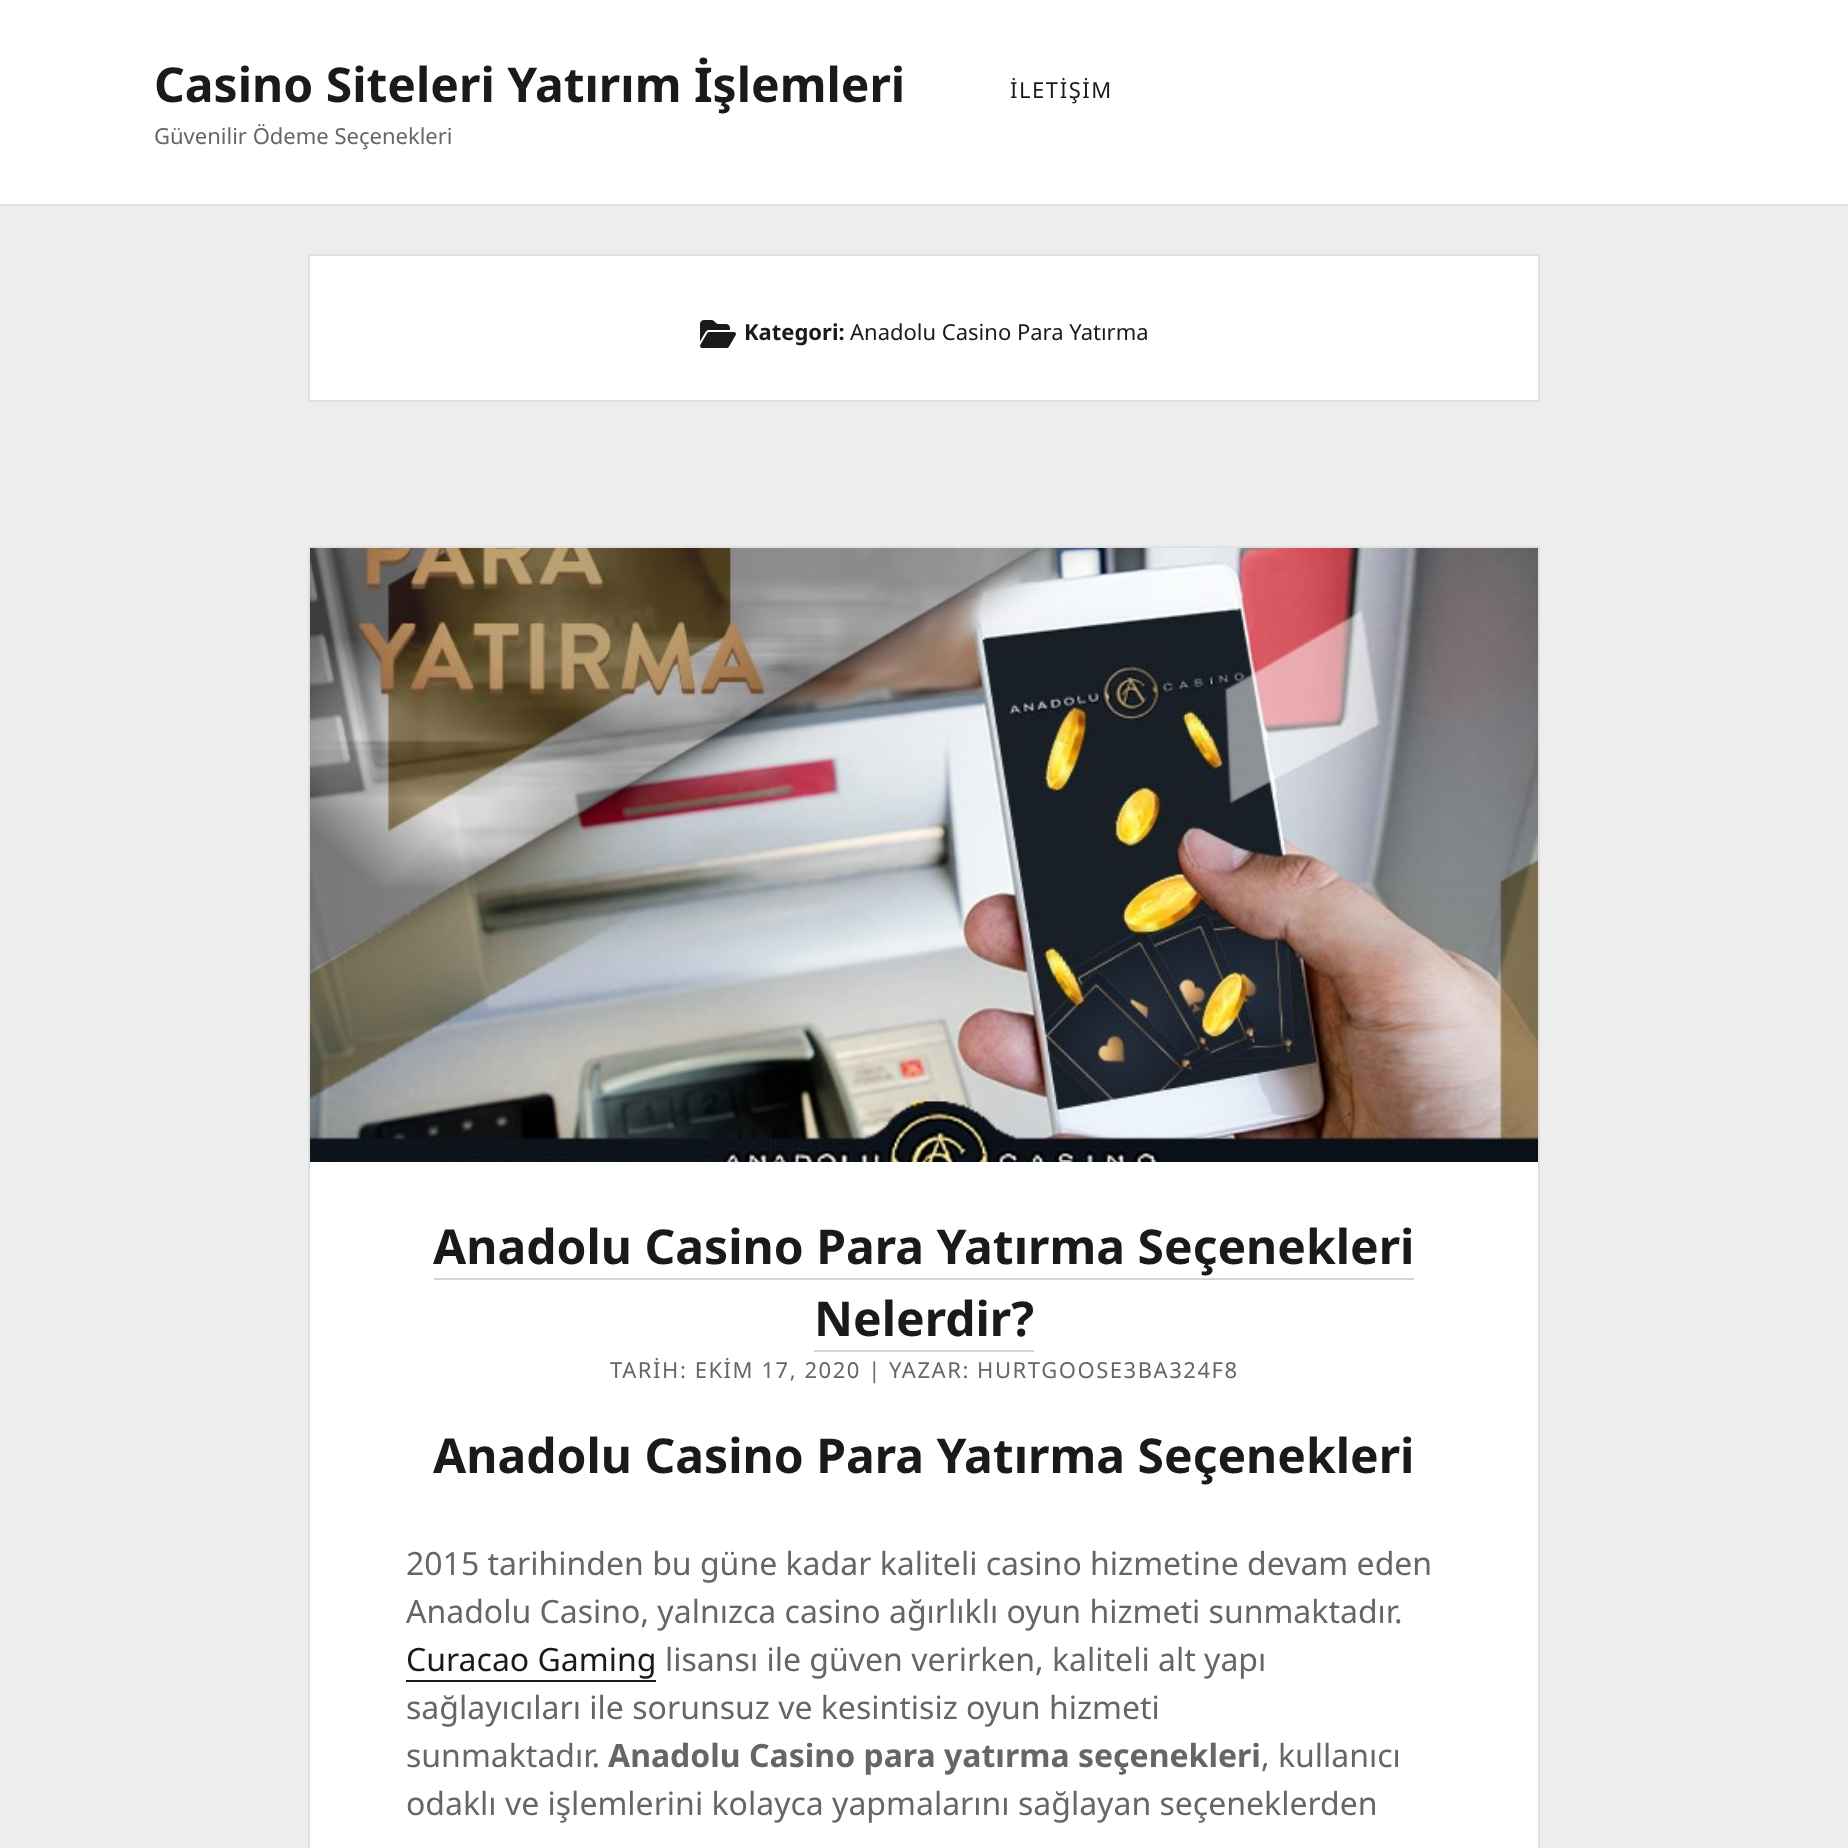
<!DOCTYPE html>
<meta charset="utf-8">
<style>body { margin: 0 } canvas { display: block }</style>
<canvas id="canvas" width="1848" height="1848"></canvas>
<script type="module">
  const canvas = document.getElementById("canvas");
  const ctx = canvas.getContext("2d");
  ctx.miterLimit = 4;
  ctx.fontKerning = "normal";
  async function loadImage(src) {
    const img = new Image();
    img.src = src;
    await img.decode();
    return img;
  }

  ctx.fillStyle = "#ededed";
  ctx.fillRect(0, 0, 1848, 1848);
  ctx.fillStyle = "#ffffff";
  ctx.fillRect(0, 0, 1848, 204);
  ctx.fillStyle = "#e0e0e0";
  ctx.fillRect(0, 204, 1848, 2);
  ctx.font = "bold 48px Noto Sans";
  ctx.fillStyle = "#1a1a1a";
  ctx.fillText("Casino Siteleri Yatırım İşlemleri", 154, 102);
  ctx.font = "22px Noto Sans";
  ctx.fillStyle = "#666666";
  ctx.fillText("Güvenilir Ödeme Seçenekleri", 154, 144);
  ctx.letterSpacing = "1.55px";
  ctx.fillStyle = "#1a1a1a";
  ctx.fillText("İLETİŞİM", 1010, 98);
  ctx.fillStyle = "#ffffff";
  ctx.beginPath();
  ctx.rect(309, 255, 1230, 146);
  ctx.fill();
  ctx.strokeStyle = "#e0e0e0";
  ctx.lineWidth = 2;
  ctx.stroke();
  ctx.drawImage(await loadImage("img1.png"), 700, 320, 36, 28);
  ctx.letterSpacing = "0px";
  ctx.font = "bold 22px Noto Sans";
  ctx.fillStyle = "#1a1a1a";
  ctx.fillText("Kategori:", 744, 340);
  ctx.font = "22px Noto Sans";
  ctx.fillText("Anadolu Casino Para Yatırma", 850, 340);
  ctx.fillStyle = "#ffffff";
  ctx.fillRect(310, 1162, 1228, 686);
  ctx.strokeRect(309, 547, 1230, 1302);
  ctx.drawImage(await loadImage("img2.png"), 310, 548, 1228, 614);
  ctx.font = "bold 48px Noto Sans";
  ctx.fillStyle = "#1a1a1a";
  ctx.fillText("Anadolu Casino Para Yatırma Seçenekleri", 433, 1264);
  ctx.fillStyle = "#d4d4d4";
  ctx.fillRect(434, 1278, 980, 2);
  ctx.fillStyle = "#1a1a1a";
  ctx.fillText("Nelerdir?", 814, 1336);
  ctx.fillStyle = "#d4d4d4";
  ctx.fillRect(814, 1350, 220, 2);
  ctx.letterSpacing = "1.55px";
  ctx.font = "22px Noto Sans";
  ctx.fillStyle = "#666666";
  ctx.fillText("TARİH: EKİM 17, 2020 | YAZAR: HURTGOOSE3BA324F8", 610, 1378);
  ctx.letterSpacing = "0px";
  ctx.font = "bold 48px Noto Sans";
  ctx.fillStyle = "#1a1a1a";
  ctx.fillText("Anadolu Casino Para Yatırma Seçenekleri", 433, 1473);
  ctx.font = "32px Noto Sans";
  ctx.fillStyle = "#666666";
  ctx.fillText("2015 tarihinden bu güne kadar kaliteli casino hizmetine devam eden", 406, 1575);
  ctx.fillText("Anadolu Casino, yalnızca casino ağırlıklı oyun hizmeti sunmaktadır.", 406, 1623);
  ctx.fillStyle = "#1a1a1a";
  ctx.fillText("Curacao Gaming", 406, 1671);
  ctx.fillRect(406, 1680, 250, 2);
  ctx.fillStyle = "#666666";
  ctx.fillText("lisansı ile güven verirken, kaliteli alt yapı", 665, 1671);
  ctx.fillText("sağlayıcıları ile sorunsuz ve kesintisiz oyun hizmeti", 406, 1719);
  ctx.fillText("sunmaktadır.", 406, 1767);
  ctx.font = "bold 32px Noto Sans";
  ctx.fillText("Anadolu Casino para yatırma seçenekleri", 608, 1767);
  ctx.font = "32px Noto Sans";
  ctx.fillText(", kullanıcı", 1261, 1767);
  ctx.fillText("odaklı ve işlemlerini kolayca yapmalarını sağlayan seçeneklerden", 406, 1815);
</script>
